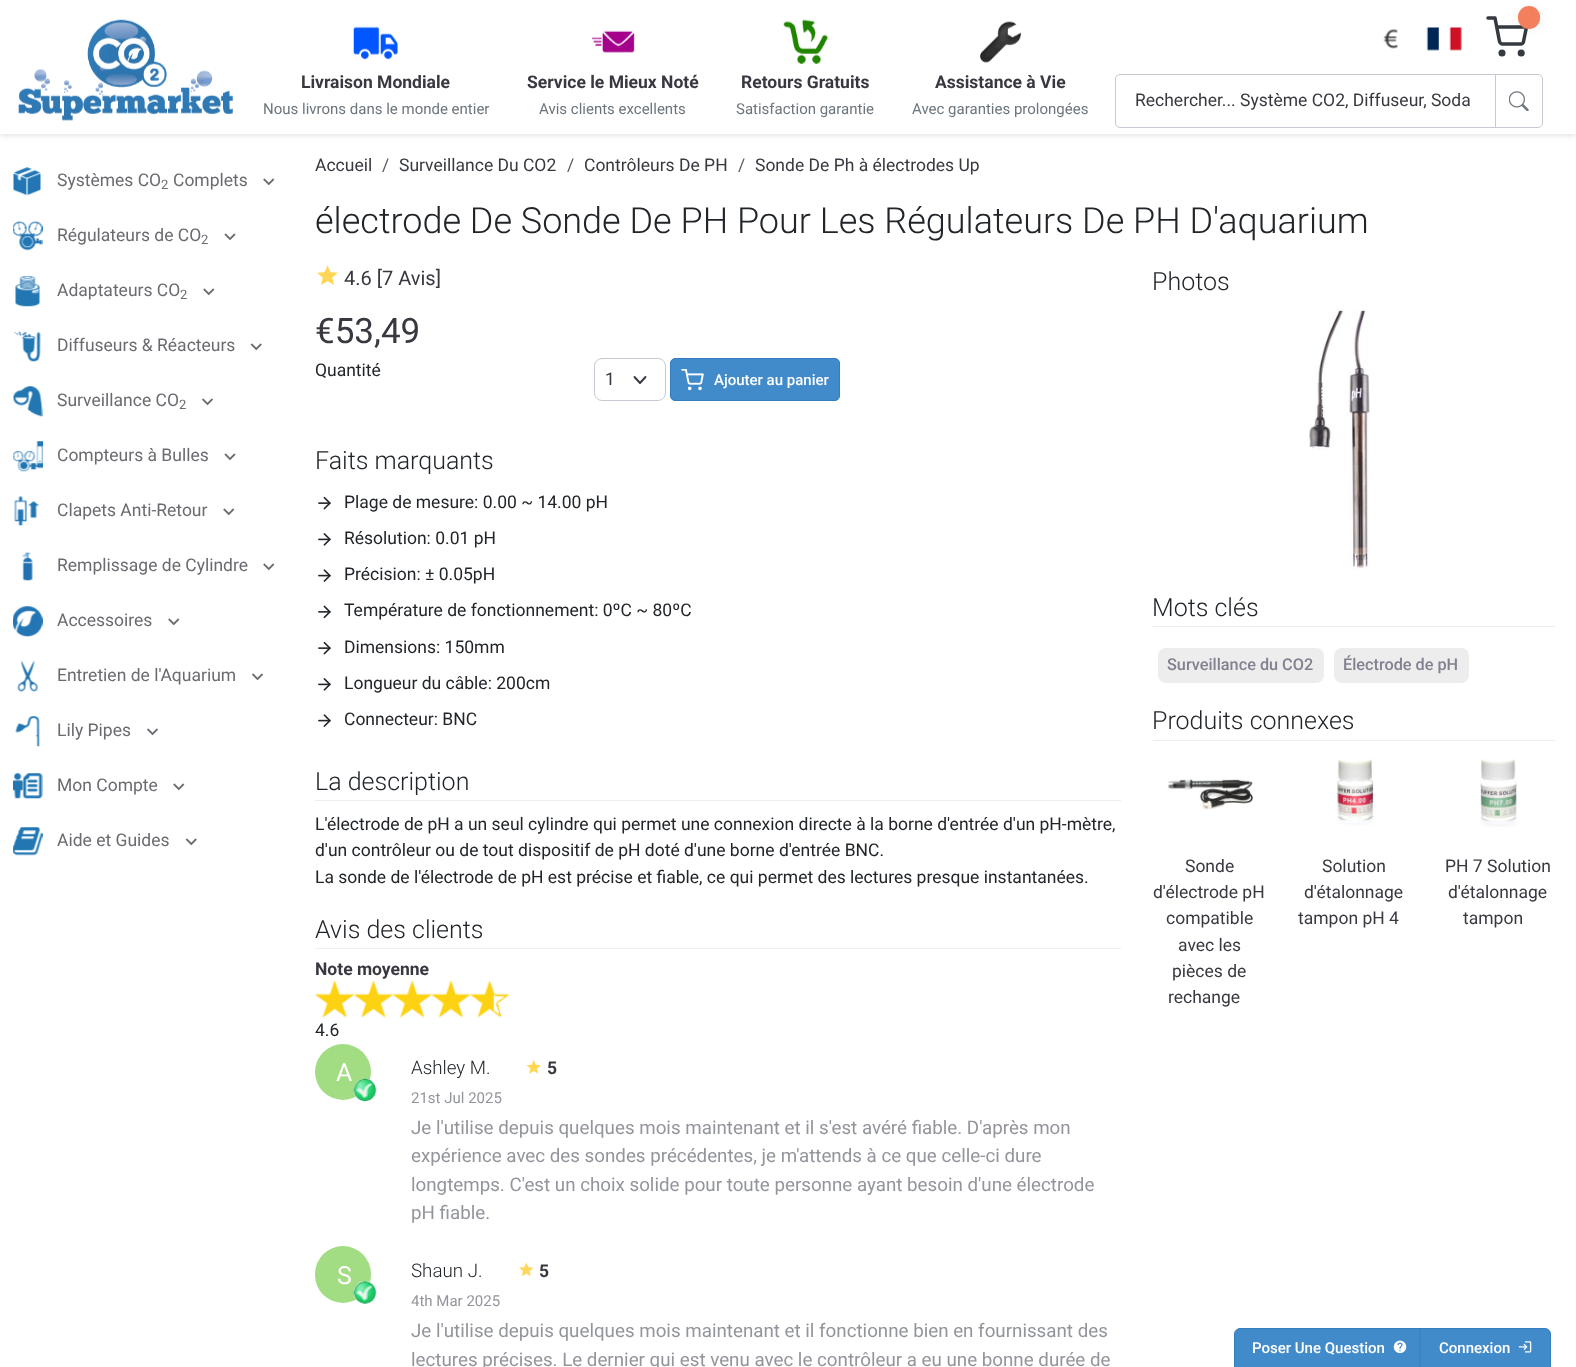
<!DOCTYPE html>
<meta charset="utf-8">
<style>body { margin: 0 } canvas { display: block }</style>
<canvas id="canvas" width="1576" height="1367"></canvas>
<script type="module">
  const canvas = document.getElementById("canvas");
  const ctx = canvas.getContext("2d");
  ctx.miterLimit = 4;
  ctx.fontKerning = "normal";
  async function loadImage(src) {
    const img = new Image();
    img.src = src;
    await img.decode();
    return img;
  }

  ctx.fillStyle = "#ffffff";
  ctx.fillRect(0, 0, 1576, 1367);
  ctx.fillStyle = "rgba(0, 0, 0, 0.1)";
  ctx.filter = "blur(2.5px)";
  ctx.beginPath();
  ctx.rect(0, 3, 1576, 133);
  ctx.fill();
  ctx.filter = "none";
  ctx.fillStyle = "#ffffff";
  ctx.fillRect(0, 0, 1576, 134);
  ctx.drawImage(await loadImage("img1.png"), 18, 19, 215, 102);
  ctx.drawImage(await loadImage("img2.png"), 353, 26, 45, 34);
  ctx.font = "bold 17.5px Roboto";
  ctx.fillStyle = "#383840";
  ctx.fillText("Livraison Mondiale", 301, 88);
  ctx.font = "15px Roboto";
  ctx.fillStyle = "#6c757d";
  ctx.fillText("Nous livrons dans le monde entier", 263, 114);
  ctx.drawImage(await loadImage("img3.png"), 592, 30, 43, 23);
  ctx.font = "bold 17.5px Roboto";
  ctx.fillStyle = "#383840";
  ctx.fillText("Service le Mieux Noté", 527, 88);
  ctx.font = "15px Roboto";
  ctx.fillStyle = "#6c757d";
  ctx.fillText("Avis clients excellents", 539, 114);
  ctx.drawImage(await loadImage("img4.png"), 783, 19, 45, 45);
  ctx.font = "bold 17.5px Roboto";
  ctx.fillStyle = "#383840";
  ctx.fillText("Retours Gratuits", 741, 88);
  ctx.font = "15px Roboto";
  ctx.fillStyle = "#6c757d";
  ctx.fillText("Satisfaction garantie", 736, 114);
  ctx.drawImage(await loadImage("img5.png"), 979, 21, 42, 42);
  ctx.font = "bold 17.5px Roboto";
  ctx.fillStyle = "#383840";
  ctx.fillText("Assistance à Vie", 935, 88);
  ctx.font = "15px Roboto";
  ctx.fillStyle = "#6c757d";
  ctx.fillText("Avec garanties prolongées", 912, 114);
  ctx.drawImage(await loadImage("img6.png"), 1383, 28, 16, 21);
  ctx.drawImage(await loadImage("img7.png"), 1426, 27, 36, 24);
  ctx.beginPath();
  ctx.moveTo(1488, 18);
  ctx.lineTo(1495, 18);
  ctx.lineTo(1499.5, 41.5);
  ctx.bezierCurveTo(1500, 43, 1501.5, 44.5, 1503, 44);
  ctx.lineTo(1520, 44);
  ctx.bezierCurveTo(1522, 44.5, 1523.5, 43, 1523.5, 41.5);
  ctx.lineTo(1526.5, 27);
  ctx.lineTo(1497, 27);
  ctx.strokeStyle = "#343a40";
  ctx.lineWidth = 3.5;
  ctx.lineCap = "round";
  ctx.lineJoin = "round";
  ctx.stroke();
  ctx.fillStyle = "rgba(56, 56, 64, 0.09)";
  ctx.filter = "blur(4.5px)";
  ctx.beginPath();
  ctx.roundRect(1519, 8, 22, 22, 11);
  ctx.fill();
  ctx.filter = "none";
  ctx.fillStyle = "#f37f5c";
  ctx.beginPath();
  ctx.roundRect(1518, 6, 22, 23, 11);
  ctx.fill();
  ctx.beginPath();
  ctx.arc(1502, 53, 1.8, 0, Math.PI * 2);
  ctx.stroke();
  ctx.beginPath();
  ctx.arc(1521.2, 53, 1.8, 0, Math.PI * 2);
  ctx.stroke();
  ctx.beginPath();
  ctx.roundRect(1115.5, 74.5, 380, 53, [4.5, 0, 0, 4.5]);
  ctx.strokeStyle = "#c5cad3";
  ctx.lineWidth = 1;
  ctx.lineJoin = "miter";
  ctx.stroke();
  ctx.font = "17.5px Roboto";
  ctx.fillStyle = "#383840";
  ctx.fillText("Rechercher... Système CO2, Diffuseur, Soda", 1135, 106);
  ctx.beginPath();
  ctx.roundRect(1495.5, 74.5, 47, 53, [0, 4.5, 4.5, 0]);
  ctx.stroke();
  ctx.drawImage(await loadImage("img8.png"), 1509, 91, 20, 20);
  ctx.drawImage(await loadImage("img9.png"), 13, 167, 28, 29);
  ctx.fillStyle = "#6a6a70";
  ctx.fillText("Systèmes CO", 57, 186);
  ctx.font = "13px Roboto";
  ctx.fillText("2", 161, 189);
  ctx.font = "17.5px Roboto";
  ctx.fillText("Complets", 173, 186);
  ctx.drawImage(await loadImage("img10.png"), 263, 178, 12, 8);
  ctx.drawImage(await loadImage("img11.png"), 13, 221, 30, 30);
  ctx.fillText("Régulateurs de CO", 57, 241);
  ctx.font = "13px Roboto";
  ctx.fillText("2", 201, 244);
  ctx.drawImage(await loadImage("img12.png"), 224, 233, 12, 8);
  ctx.drawImage(await loadImage("img13.png"), 15, 276, 25, 31);
  ctx.font = "17.5px Roboto";
  ctx.fillText("Adaptateurs CO", 57, 296);
  ctx.font = "13px Roboto";
  ctx.fillText("2", 180, 299);
  ctx.drawImage(await loadImage("img10.png"), 203, 288, 12, 8);
  ctx.drawImage(await loadImage("img14.png"), 14, 331, 27, 31);
  ctx.font = "17.5px Roboto";
  ctx.fillText("Diffuseurs & Réacteurs", 57, 351);
  ctx.drawImage(await loadImage("img15.png"), 250, 343, 12, 8);
  ctx.drawImage(await loadImage("img16.png"), 13, 386, 30, 31);
  ctx.fillText("Surveillance CO", 57, 406);
  ctx.font = "13px Roboto";
  ctx.fillText("2", 179, 409);
  ctx.drawImage(await loadImage("img17.png"), 202, 398, 11, 8);
  ctx.drawImage(await loadImage("img18.png"), 13, 441, 30, 31);
  ctx.font = "17.5px Roboto";
  ctx.fillText("Compteurs à Bulles", 57, 461);
  ctx.drawImage(await loadImage("img12.png"), 224, 453, 12, 8);
  ctx.drawImage(await loadImage("img19.png"), 14, 496, 26, 30);
  ctx.fillText("Clapets Anti-Retour", 57, 516);
  ctx.drawImage(await loadImage("img10.png"), 223, 508, 12, 8);
  ctx.drawImage(await loadImage("img20.png"), 22, 552, 11, 29);
  ctx.fillText("Remplissage de Cylindre", 57, 571);
  ctx.drawImage(await loadImage("img10.png"), 263, 563, 12, 8);
  ctx.drawImage(await loadImage("img21.png"), 13, 606, 30, 31);
  ctx.fillText("Accessoires", 57, 626);
  ctx.drawImage(await loadImage("img10.png"), 168, 618, 12, 8);
  ctx.drawImage(await loadImage("img22.png"), 17, 661, 21, 31);
  ctx.fillText("Entretien de l'Aquarium", 57, 681);
  ctx.drawImage(await loadImage("img17.png"), 252, 673, 11, 8);
  ctx.drawImage(await loadImage("img23.png"), 15, 716, 25, 31);
  ctx.fillText("Lily Pipes", 57, 736);
  ctx.drawImage(await loadImage("img17.png"), 147, 728, 11, 8);
  ctx.drawImage(await loadImage("img24.png"), 13, 773, 30, 26);
  ctx.fillText("Mon Compte", 57, 791);
  ctx.drawImage(await loadImage("img10.png"), 173, 783, 12, 8);
  ctx.drawImage(await loadImage("img25.png"), 13, 827, 30, 29);
  ctx.fillText("Aide et Guides", 57, 846);
  ctx.drawImage(await loadImage("img15.png"), 185, 838, 12, 8);
  ctx.fillStyle = "#383840";
  ctx.fillText("Accueil", 315, 171);
  ctx.fillStyle = "#595c5f";
  ctx.fillText("/", 382, 171);
  ctx.fillStyle = "#383840";
  ctx.fillText("Surveillance Du CO2", 399, 171);
  ctx.fillStyle = "#595c5f";
  ctx.fillText("/", 567, 171);
  ctx.fillStyle = "#383840";
  ctx.fillText("Contrôleurs De PH", 584, 171);
  ctx.fillStyle = "#595c5f";
  ctx.fillText("/", 738, 171);
  ctx.fillStyle = "#383840";
  ctx.fillText("Sonde De Ph à électrodes Up", 755, 171);
  ctx.font = "300 36px Roboto";
  ctx.fillStyle = "#212529";
  ctx.fillText("électrode De Sonde De PH Pour Les Régulateurs De PH D'aquarium", 315, 233);
  ctx.drawImage(await loadImage("img26.png"), 317, 265, 21, 20);
  ctx.font = "20px Roboto";
  ctx.fillStyle = "#383840";
  ctx.fillText("4.6 [7 Avis]", 344, 285);
  ctx.font = "35px Roboto";
  ctx.fillText("€53,49", 315, 343);
  ctx.font = "17.5px Roboto";
  ctx.fillStyle = "#212529";
  ctx.fillText("Quantité", 315, 376);
  ctx.beginPath();
  ctx.moveTo(634.5, 377);
  ctx.lineTo(640, 383);
  ctx.lineTo(645.5, 377);
  ctx.strokeStyle = "#343a40";
  ctx.lineWidth = 1.9;
  ctx.lineJoin = "round";
  ctx.stroke();
  ctx.beginPath();
  ctx.roundRect(594.5, 358.5, 71, 42, 7.5);
  ctx.strokeStyle = "#c5cad3";
  ctx.lineWidth = 1;
  ctx.lineJoin = "miter";
  ctx.stroke();
  ctx.fillStyle = "#383840";
  ctx.fillText("1", 605, 385);
  ctx.fillStyle = "#428bca";
  ctx.beginPath();
  ctx.roundRect(670.5, 358.5, 169, 42, 4.5);
  ctx.fill();
  ctx.strokeStyle = "#357ebd";
  ctx.stroke();
  ctx.drawImage(await loadImage("img27.png"), 681, 369, 23, 22);
  ctx.font = "500 15px Roboto";
  ctx.fillStyle = "#ffffff";
  ctx.fillText("Ajouter au panier", 714, 385);
  ctx.font = "300 25px Roboto";
  ctx.fillStyle = "#212529";
  ctx.fillText("Faits marquants", 315, 469);
  ctx.drawImage(await loadImage("img28.png"), 318, 496, 13, 14);
  ctx.font = "17.5px Roboto";
  ctx.fillText("Plage de mesure: 0.00 ~ 14.00 pH", 344, 508);
  ctx.drawImage(await loadImage("img29.png"), 318, 533, 13, 13);
  ctx.fillText("Résolution: 0.01 pH", 344, 544);
  ctx.drawImage(await loadImage("img30.png"), 318, 569, 13, 13);
  ctx.fillText("Précision: ± 0.05pH", 344, 580);
  ctx.drawImage(await loadImage("img31.png"), 318, 605, 13, 14);
  ctx.fillText("Température de fonctionnement: 0ºC ~ 80ºC", 344, 616);
  ctx.drawImage(await loadImage("img28.png"), 318, 641, 13, 14);
  ctx.fillText("Dimensions: 150mm", 344, 653);
  ctx.drawImage(await loadImage("img29.png"), 318, 678, 13, 13);
  ctx.fillText("Longueur du câble: 200cm", 344, 689);
  ctx.drawImage(await loadImage("img30.png"), 318, 714, 13, 13);
  ctx.fillText("Connecteur: BNC", 344, 725);
  ctx.fillStyle = "#ededed";
  ctx.fillRect(315, 800, 806, 1);
  ctx.font = "300 25px Roboto";
  ctx.fillStyle = "#212529";
  ctx.fillText("La description", 315, 790);
  ctx.font = "17.5px Roboto";
  ctx.fillText("L'électrode de pH a un seul cylindre qui permet une connexion directe à la borne d'entrée d'un pH-mètre,", 315, 830);
  ctx.fillText("d'un contrôleur ou de tout dispositif de pH doté d'une borne d'entrée BNC.", 315, 856);
  ctx.fillText("La sonde de l'électrode de pH est précise et fiable, ce qui permet des lectures presque instantanées.", 315, 883);
  ctx.fillStyle = "#ededed";
  ctx.fillRect(315, 948, 806, 1);
  ctx.font = "300 25px Roboto";
  ctx.fillStyle = "#212529";
  ctx.fillText("Avis des clients", 315, 938);
  ctx.font = "bold 17.5px Roboto";
  ctx.fillStyle = "#383840";
  ctx.fillText("Note moyenne", 315, 975);
  ctx.drawImage(await loadImage("img32.png"), 315, 980, 194, 38);
  ctx.drawImage(await loadImage("img33.png"), 317, 980, 177, 38);
  ctx.font = "17.5px Roboto";
  ctx.fillStyle = "#212529";
  ctx.fillText("4.6", 315, 1036);
  ctx.fillStyle = "#a2dd84";
  ctx.beginPath();
  ctx.arc(343, 1072, 28, 0, Math.PI * 2);
  ctx.fill();
  ctx.font = "25px Roboto";
  ctx.fillStyle = "#ffffff";
  ctx.fillText("A", 336, 1081);
  ctx.drawImage(await loadImage("img34.png"), 353, 1078, 24, 24);
  ctx.font = "300 18.75px Roboto";
  ctx.fillStyle = "#212529";
  ctx.fillText("Ashley M.", 411, 1074);
  ctx.drawImage(await loadImage("img35.png"), 526, 1060, 15, 14);
  ctx.font = "bold 17.5px Roboto";
  ctx.fillStyle = "#383840";
  ctx.fillText("5", 547, 1074);
  ctx.font = "15px Roboto";
  ctx.fillStyle = "#93959c";
  ctx.fillText("21st Jul 2025", 411, 1103);
  ctx.font = "18.75px Roboto";
  ctx.fillText("Je l'utilise depuis quelques mois maintenant et il s'est avéré fiable. D'après mon", 411, 1134);
  ctx.fillText("expérience avec des sondes précédentes, je m'attends à ce que celle-ci dure", 411, 1162);
  ctx.fillText("longtemps. C'est un choix solide pour toute personne ayant besoin d'une électrode", 411, 1191);
  ctx.fillText("pH fiable.", 411, 1219);
  ctx.fillStyle = "#a2dd84";
  ctx.beginPath();
  ctx.roundRect(315, 1246, 56, 57, 28);
  ctx.fill();
  ctx.font = "25px Roboto";
  ctx.fillStyle = "#ffffff";
  ctx.fillText("S", 337, 1284);
  ctx.beginPath();
  ctx.roundRect(354, 1281, 22, 23, 11);
  ctx.fill();
  ctx.drawImage(await loadImage("img36.png"), 353, 1281, 24, 23);
  ctx.font = "300 18.75px Roboto";
  ctx.fillStyle = "#212529";
  ctx.fillText("Shaun J.", 411, 1277);
  ctx.drawImage(await loadImage("img37.png"), 519, 1262, 15, 15);
  ctx.font = "bold 17.5px Roboto";
  ctx.fillStyle = "#383840";
  ctx.fillText("5", 539, 1277);
  ctx.font = "15px Roboto";
  ctx.fillStyle = "#93959c";
  ctx.fillText("4th Mar 2025", 411, 1306);
  ctx.font = "18.75px Roboto";
  ctx.fillText("Je l'utilise depuis quelques mois maintenant et il fonctionne bien en fournissant des", 411, 1337);
  ctx.fillText("lectures précises. Le dernier qui est venu avec le contrôleur a eu une bonne durée de", 411, 1366);
  ctx.font = "300 25px Roboto";
  ctx.fillStyle = "#212529";
  ctx.fillText("Photos", 1152, 290);
  ctx.drawImage(await loadImage("img38.png"), 1309, 310, 61, 260);
  ctx.fillStyle = "#ededed";
  ctx.fillRect(1153, 626, 402, 1);
  ctx.fillStyle = "#212529";
  ctx.fillText("Mots clés", 1152, 616);
  ctx.fillStyle = "#ededed";
  ctx.beginPath();
  ctx.roundRect(1158, 648, 166, 35, 8);
  ctx.fill();
  ctx.font = "500 16.25px Roboto";
  ctx.fillStyle = "#818190";
  ctx.fillText("Surveillance du CO2", 1167, 670);
  ctx.fillStyle = "#ededed";
  ctx.beginPath();
  ctx.roundRect(1334, 648, 135, 35, 8);
  ctx.fill();
  ctx.fillStyle = "#818190";
  ctx.fillText("Électrode de pH", 1343, 670);
  ctx.fillStyle = "#ededed";
  ctx.fillRect(1153, 740, 402, 1);
  ctx.font = "300 25px Roboto";
  ctx.fillStyle = "#212529";
  ctx.fillText("Produits connexes", 1152, 729);
  ctx.drawImage(await loadImage("img39.png"), 1165, 779, 88, 31);
  ctx.font = "17.5px Roboto";
  ctx.fillStyle = "#383840";
  ctx.fillText("Sonde", 1185, 872);
  ctx.fillText("d'électrode pH", 1153, 898);
  ctx.fillText("compatible", 1166, 924);
  ctx.fillText("avec les", 1178, 951);
  ctx.fillText("pièces de", 1172, 977);
  ctx.fillText("rechange", 1168, 1003);
  ctx.drawImage(await loadImage("img40.png"), 1336, 759, 38, 67);
  ctx.fillText("Solution", 1322, 872);
  ctx.fillText("d'étalonnage", 1304, 898);
  ctx.fillText("tampon pH 4", 1298, 924);
  ctx.drawImage(await loadImage("img41.png"), 1480, 759, 37, 68);
  ctx.fillText("PH 7 Solution", 1445, 872);
  ctx.fillText("d'étalonnage", 1448, 898);
  ctx.fillText("tampon", 1463, 924);
  ctx.fillStyle = "#428bca";
  ctx.beginPath();
  ctx.moveTo(1240, 1328.5);
  ctx.lineTo(1425.5, 1328.5);
  ctx.lineTo(1425.5, 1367.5);
  ctx.lineTo(1234.5, 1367.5);
  ctx.lineTo(1234.5, 1334);
  ctx.bezierCurveTo(1234.5, 1331, 1237, 1328.5, 1240, 1328.5);
  ctx.closePath();
  ctx.fill();
  ctx.stroke();
  ctx.font = "500 15px Roboto";
  ctx.fillStyle = "#ffffff";
  ctx.fillText("Poser Une Question", 1252, 1353);
  ctx.drawImage(await loadImage("img42.png"), 1393, 1340, 14, 14);
  ctx.fillStyle = "#428bca";
  ctx.beginPath();
  ctx.moveTo(1420.5, 1328.5);
  ctx.lineTo(1545, 1328.5);
  ctx.bezierCurveTo(1548, 1328.5, 1550.5, 1331, 1550.5, 1334);
  ctx.lineTo(1550.5, 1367.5);
  ctx.lineTo(1420.5, 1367.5);
  ctx.closePath();
  ctx.fill();
  ctx.stroke();
  ctx.fillStyle = "#ffffff";
  ctx.fillText("Connexion", 1439, 1353);
  ctx.drawImage(await loadImage("img43.png"), 1518, 1341, 14, 12);
</script>
